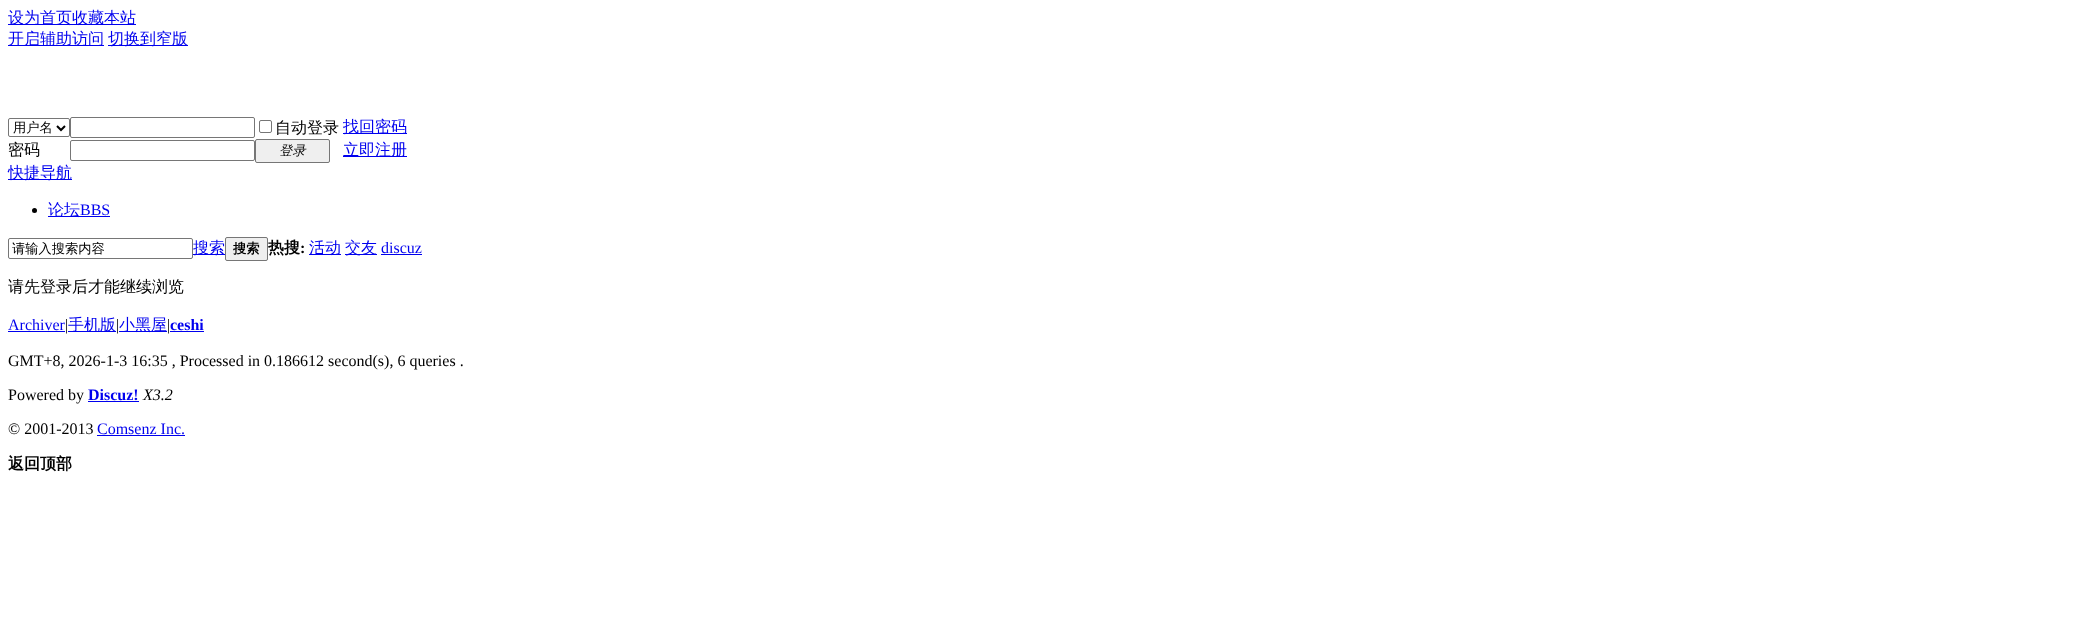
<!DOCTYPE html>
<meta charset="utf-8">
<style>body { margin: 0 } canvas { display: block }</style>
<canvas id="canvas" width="2086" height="629"></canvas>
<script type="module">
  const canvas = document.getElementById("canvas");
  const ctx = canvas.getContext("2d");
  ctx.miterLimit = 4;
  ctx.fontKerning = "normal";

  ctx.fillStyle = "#ffffff";
  ctx.fillRect(0, 0, 2086, 629);
  ctx.fillStyle = "#0000ee";
  ctx.fillRect(8, 24, 128, 1);
  ctx.font = "500 16px WenQuanYi Zen Hei";
  ctx.fillText("设为首页收藏本站", 8, 23);
  ctx.fillRect(8, 45, 96, 1);
  ctx.fillText("开启辅助访问", 8, 44);
  ctx.fillRect(108, 45, 80, 1);
  ctx.fillText("切换到窄版", 108, 44);
  ctx.beginPath();
  ctx.roundRect(8.5, 118.5, 61, 18, 1.5);
  ctx.strokeStyle = "#767676";
  ctx.stroke();
  ctx.beginPath();
  ctx.moveTo(57, 126);
  ctx.lineTo(61, 130);
  ctx.lineTo(65, 126);
  ctx.strokeStyle = "#000000";
  ctx.lineWidth = 2;
  ctx.stroke();
  ctx.font = "500 13.25px WenQuanYi Zen Hei";
  ctx.fillStyle = "#000000";
  ctx.fillText("用户名", 13, 132);
  ctx.beginPath();
  ctx.roundRect(70.5, 117.5, 184, 20, 1.5);
  ctx.strokeStyle = "#767676";
  ctx.lineWidth = 1;
  ctx.stroke();
  ctx.beginPath();
  ctx.roundRect(259.5, 120.5, 12, 12, 1.5);
  ctx.stroke();
  ctx.font = "500 16px WenQuanYi Zen Hei";
  ctx.fillText("自动登录", 275, 133);
  ctx.fillStyle = "#0000ee";
  ctx.fillRect(343, 133, 64, 1);
  ctx.fillText("找回密码", 343, 132);
  ctx.fillStyle = "#000000";
  ctx.fillText("密码", 8, 155);
  ctx.beginPath();
  ctx.roundRect(70.5, 140.5, 184, 20, 1.5);
  ctx.stroke();
  ctx.fillStyle = "#efefef";
  ctx.beginPath();
  ctx.roundRect(255.5, 139.5, 74, 23, 1.5);
  ctx.fill();
  ctx.stroke();
  ctx.font = "italic 500 13.25px WenQuanYi Zen Hei";
  ctx.fillStyle = "#000000";
  ctx.fillText("登录", 279, 155);
  ctx.fillStyle = "#0000ee";
  ctx.fillRect(343, 156, 64, 1);
  ctx.font = "500 16px WenQuanYi Zen Hei";
  ctx.fillText("立即注册", 343, 155);
  ctx.fillRect(8, 179, 64, 1);
  ctx.fillText("快捷导航", 8, 178);
  ctx.fillStyle = "#000000";
  ctx.beginPath();
  ctx.arc(34.5, 210.5, 2.5, 0, Math.PI * 2);
  ctx.fill();
  ctx.fillStyle = "#0000ee";
  ctx.fillRect(48, 216, 62, 1);
  ctx.fillText("论坛", 48, 215);
  ctx.font = "16px Liberation Serif";
  ctx.fillText("BBS", 80, 215);
  ctx.beginPath();
  ctx.roundRect(8.5, 238.5, 184, 20, 1.5);
  ctx.stroke();
  ctx.font = "500 13.25px WenQuanYi Zen Hei";
  ctx.fillStyle = "#000000";
  ctx.fillText("请输入搜索内容", 12, 253);
  ctx.fillStyle = "#0000ee";
  ctx.fillRect(193, 254, 32, 1);
  ctx.font = "500 16px WenQuanYi Zen Hei";
  ctx.fillText("搜索", 193, 253);
  ctx.fillStyle = "#efefef";
  ctx.beginPath();
  ctx.roundRect(225.5, 237.5, 42, 23, 1.5);
  ctx.fill();
  ctx.stroke();
  ctx.font = "bold 13.25px WenQuanYi Zen Hei";
  ctx.fillStyle = "#000000";
  ctx.fillText("搜索", 233, 253);
  ctx.font = "bold 16px WenQuanYi Zen Hei";
  ctx.fillText("热搜", 268, 253);
  ctx.font = "bold 16px Liberation Serif";
  ctx.fillText(":", 300, 253);
  ctx.fillStyle = "#0000ee";
  ctx.fillRect(309, 254, 32, 1);
  ctx.font = "500 16px WenQuanYi Zen Hei";
  ctx.fillText("活动", 309, 253);
  ctx.fillRect(345, 254, 32, 1);
  ctx.fillText("交友", 345, 253);
  ctx.font = "16px Liberation Serif";
  ctx.fillText("discuz", 381, 253);
  ctx.fillRect(381, 254, 41, 1);
  ctx.font = "500 16px WenQuanYi Zen Hei";
  ctx.fillStyle = "#000000";
  ctx.fillText("请先登录后才能继续浏览", 8, 292);
  ctx.font = "16px Liberation Serif";
  ctx.fillStyle = "#0000ee";
  ctx.fillText("Archiver", 8, 330);
  ctx.fillRect(8, 331, 57, 1);
  ctx.fillStyle = "#000000";
  ctx.fillText("|", 65, 330);
  ctx.fillStyle = "#0000ee";
  ctx.fillRect(68, 331, 48, 1);
  ctx.font = "500 16px WenQuanYi Zen Hei";
  ctx.fillText("手机版", 68, 330);
  ctx.font = "16px Liberation Serif";
  ctx.fillStyle = "#000000";
  ctx.fillText("|", 116, 330);
  ctx.fillStyle = "#0000ee";
  ctx.fillRect(119, 331, 48, 1);
  ctx.font = "500 16px WenQuanYi Zen Hei";
  ctx.fillText("小黑屋", 119, 330);
  ctx.font = "16px Liberation Serif";
  ctx.fillStyle = "#000000";
  ctx.fillText("|", 167, 330);
  ctx.font = "bold 16px Liberation Serif";
  ctx.fillStyle = "#0000ee";
  ctx.fillText("ceshi", 170, 330);
  ctx.fillRect(170, 331, 34, 1);
  ctx.font = "16px Liberation Serif";
  ctx.fillStyle = "#000000";
  ctx.fillText("GMT+8, 2026-1-3 16:35 , Processed in 0.186612 second(s), 6 queries .", 8, 366);
  ctx.fillText("Powered by", 8, 400);
  ctx.font = "bold 16px Liberation Serif";
  ctx.fillStyle = "#0000ee";
  ctx.fillText("Discuz!", 88, 400);
  ctx.fillRect(88, 401, 51, 1);
  ctx.font = "italic 16px Liberation Serif";
  ctx.fillStyle = "#000000";
  ctx.fillText("X3.2", 143, 400);
  ctx.font = "16px Liberation Serif";
  ctx.fillText("© 2001-2013", 8, 434);
  ctx.fillStyle = "#0000ee";
  ctx.fillText("Comsenz Inc.", 97, 434);
  ctx.fillRect(97, 435, 88, 1);
  ctx.font = "bold 16px WenQuanYi Zen Hei";
  ctx.fillStyle = "#000000";
  ctx.fillText("返回顶部", 8, 469);
</script>
